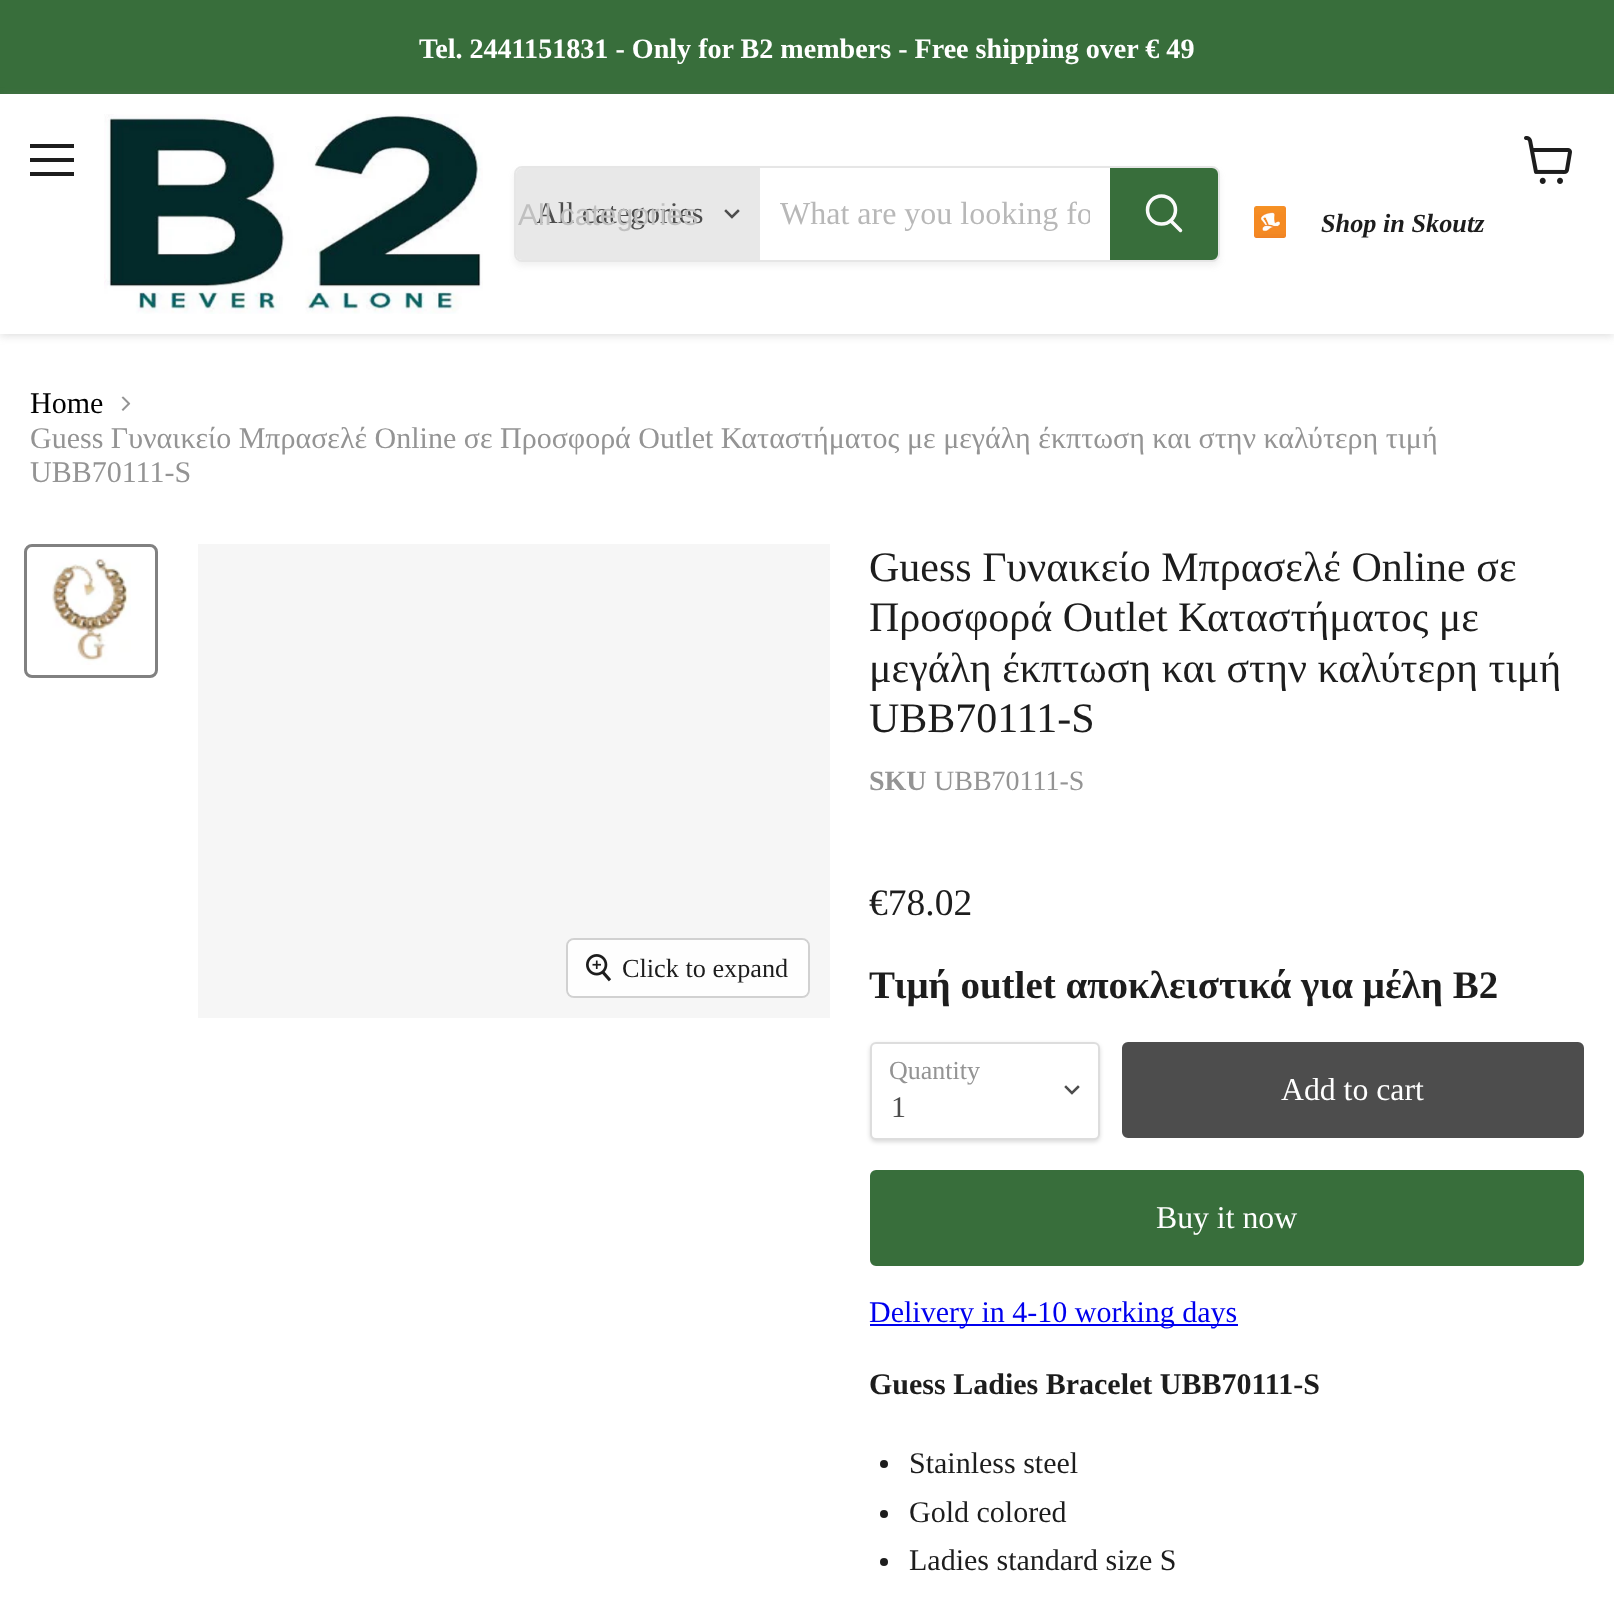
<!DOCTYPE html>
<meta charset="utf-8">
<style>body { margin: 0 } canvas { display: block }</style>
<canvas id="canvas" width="1614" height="1612"></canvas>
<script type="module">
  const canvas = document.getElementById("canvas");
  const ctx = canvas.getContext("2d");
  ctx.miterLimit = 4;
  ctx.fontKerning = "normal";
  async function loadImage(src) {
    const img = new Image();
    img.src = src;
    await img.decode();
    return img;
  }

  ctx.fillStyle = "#ffffff";
  ctx.fillRect(0, 0, 1614, 1612);
  ctx.fillStyle = "#386e3b";
  ctx.fillRect(0, 0, 1614, 94);
  ctx.font = "bold 28.1px Liberation Serif";
  ctx.fillStyle = "#ffffff";
  ctx.fillText("Tel. 2441151831 - Only for B2 members - Free shipping over € 49", 419, 58);
  ctx.fillStyle = "rgba(128, 128, 128, 0.25)";
  ctx.filter = "blur(4px)";
  ctx.beginPath();
  ctx.rect(0, 96, 1614, 240);
  ctx.fill();
  ctx.filter = "none";
  ctx.fillStyle = "#ffffff";
  ctx.fillRect(0, 94, 1614, 240);
  ctx.fillStyle = "#1d1d1d";
  ctx.fillRect(30, 144, 44, 4);
  ctx.fillRect(30, 158, 44, 4);
  ctx.fillRect(30, 172, 44, 4);
  ctx.drawImage(await loadImage("img1.png"), 1524, 136, 48, 48);
  ctx.drawImage(await loadImage("img2.png"), 104, 114, 379, 200);
  ctx.save();
  ctx.beginPath();
  ctx.moveTo(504, 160);
  ctx.lineTo(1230, 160);
  ctx.lineTo(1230, 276);
  ctx.lineTo(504, 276);
  ctx.closePath();
  ctx.moveTo(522, 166);
  ctx.lineTo(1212, 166);
  ctx.bezierCurveTo(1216.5, 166, 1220, 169.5, 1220, 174);
  ctx.lineTo(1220, 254);
  ctx.bezierCurveTo(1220, 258.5, 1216.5, 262, 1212, 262);
  ctx.lineTo(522, 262);
  ctx.bezierCurveTo(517.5, 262, 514, 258.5, 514, 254);
  ctx.lineTo(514, 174);
  ctx.bezierCurveTo(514, 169.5, 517.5, 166, 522, 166);
  ctx.closePath();
  ctx.clip("evenodd");
  ctx.fillStyle = "rgba(128, 128, 128, 0.11)";
  ctx.filter = "blur(3px)";
  ctx.beginPath();
  ctx.roundRect(514, 170, 706, 96, 8);
  ctx.fill();
  ctx.filter = "none";
  ctx.restore();
  ctx.beginPath();
  ctx.roundRect(515, 167, 704, 94, 7);
  ctx.strokeStyle = "rgba(128, 128, 128, 0.2)";
  ctx.lineWidth = 2;
  ctx.stroke();
  ctx.fillStyle = "#e8e8e8";
  ctx.beginPath();
  ctx.roundRect(516, 168, 244, 92, [6, 0, 0, 6]);
  ctx.fill();
  ctx.font = "30px Liberation Serif";
  ctx.fillStyle = "#4d4d4d";
  ctx.fillText("All categories", 536, 223);
  ctx.font = "30px Liberation Sans";
  ctx.fillStyle = "#c0c0c0";
  ctx.fillText("All categories", 518, 225);
  ctx.beginPath();
  ctx.moveTo(732, 217);
  ctx.lineTo(738, 211);
  ctx.moveTo(732, 217);
  ctx.lineTo(726, 211);
  ctx.strokeStyle = "#4d4d4d";
  ctx.lineWidth = 2.5;
  ctx.lineCap = "square";
  ctx.stroke();
  ctx.save();
  ctx.beginPath();
  ctx.rect(780, 196, 310, 36);
  ctx.clip();
  ctx.font = "32px Liberation Serif";
  ctx.fillStyle = "#b8b8b8";
  ctx.fillText("What are you looking fo", 780, 224);
  ctx.restore();
  ctx.fillStyle = "#386e3b";
  ctx.beginPath();
  ctx.roundRect(1111, 169, 106, 90, [0, 5, 5, 0]);
  ctx.fill();
  ctx.strokeStyle = "#386e3b";
  ctx.lineWidth = 2;
  ctx.stroke();
  ctx.beginPath();
  ctx.moveTo(1180.5, 230.5);
  ctx.lineTo(1171, 221);
  ctx.strokeStyle = "#fafafa";
  ctx.lineWidth = 3.5;
  ctx.lineCap = "round";
  ctx.stroke();
  ctx.beginPath();
  ctx.arc(1161.5, 210, 14, 0, Math.PI * 2);
  ctx.stroke();
  ctx.drawImage(await loadImage("img3.png"), 1254, 206, 32, 32);
  ctx.font = "italic bold 26.25px Liberation Serif";
  ctx.fillStyle = "#1d1d1d";
  ctx.fillText("Shop in Skoutz", 1321, 232);
  ctx.font = "30px Liberation Serif";
  ctx.fillStyle = "#000000";
  ctx.fillText("Home", 30, 413);
  ctx.drawImage(await loadImage("img4.png"), 121, 396, 10, 15);
  ctx.fillStyle = "#949494";
  ctx.fillText("Guess Γυναικείο Μπρασελέ Online σε Προσφορά Outlet Καταστήματος με μεγάλη έκπτωση και στην καλύτερη τιμή", 30, 448);
  ctx.fillText("UBB70111-S", 30, 482);
  ctx.beginPath();
  ctx.roundRect(25.5, 545.5, 131, 131, 6.5);
  ctx.strokeStyle = "#818181";
  ctx.lineWidth = 3;
  ctx.stroke();
  ctx.drawImage(await loadImage("img5.png"), 52, 558, 79, 107);
  ctx.fillStyle = "#f6f6f6";
  ctx.fillRect(198, 544, 632, 474);
  ctx.beginPath();
  ctx.roundRect(567, 939, 242, 58, 7);
  ctx.strokeStyle = "#d1d1d1";
  ctx.lineWidth = 2;
  ctx.stroke();
  ctx.fillStyle = "rgba(255, 255, 255, 0.9)";
  ctx.beginPath();
  ctx.roundRect(568, 940, 240, 56, 6);
  ctx.fill();
  ctx.drawImage(await loadImage("img6.png"), 586, 954, 26, 28);
  ctx.font = "26.25px Liberation Serif";
  ctx.fillStyle = "#1d1d1d";
  ctx.fillText("Click to expand", 622, 977);
  ctx.font = "42px Liberation Serif";
  ctx.fillText("Guess Γυναικείο Μπρασελέ Online σε", 869, 581);
  ctx.fillText("Προσφορά Outlet Καταστήματος με", 869, 631);
  ctx.fillText("μεγάλη έκπτωση και στην καλύτερη τιμή", 869, 682);
  ctx.fillText("UBB70111-S", 869, 732);
  ctx.font = "bold 28px Liberation Serif";
  ctx.fillStyle = "#949494";
  ctx.fillText("SKU", 869, 790);
  ctx.font = "28px Liberation Serif";
  ctx.fillText("UBB70111-S", 934, 790);
  ctx.font = "37.5px Liberation Serif";
  ctx.fillStyle = "#1d1d1d";
  ctx.fillText("€78.02", 869, 915);
  ctx.font = "bold 39px Liberation Serif";
  ctx.fillText("Τιμή outlet αποκλειστικά για μέλη Β2", 869, 998);
  ctx.fillStyle = "rgba(0, 0, 0, 0.15)";
  ctx.filter = "blur(2px)";
  ctx.beginPath();
  ctx.roundRect(870, 1044, 230, 98, 6);
  ctx.fill();
  ctx.filter = "none";
  ctx.fillStyle = "#ffffff";
  ctx.beginPath();
  ctx.roundRect(871, 1043, 228, 96, 5);
  ctx.fill();
  ctx.strokeStyle = "#dddddd";
  ctx.stroke();
  ctx.font = "26px Liberation Serif";
  ctx.fillStyle = "#949494";
  ctx.fillText("Quantity", 889, 1079);
  ctx.beginPath();
  ctx.moveTo(1072, 1093);
  ctx.lineTo(1078, 1087);
  ctx.moveTo(1072, 1093);
  ctx.lineTo(1066, 1087);
  ctx.strokeStyle = "#4d4d4d";
  ctx.lineWidth = 2.5;
  ctx.lineCap = "square";
  ctx.stroke();
  ctx.font = "30px Liberation Serif";
  ctx.fillStyle = "#4d4d4d";
  ctx.fillText("1", 891, 1117);
  ctx.beginPath();
  ctx.roundRect(1123, 1043, 460, 94, 5);
  ctx.fill();
  ctx.lineWidth = 2;
  ctx.stroke();
  ctx.font = "31.75px Liberation Serif";
  ctx.fillStyle = "#ffffff";
  ctx.fillText("Add to cart", 1281, 1100);
  ctx.fillStyle = "#386e3b";
  ctx.beginPath();
  ctx.roundRect(871, 1171, 712, 94, 5);
  ctx.fill();
  ctx.strokeStyle = "#386e3b";
  ctx.stroke();
  ctx.fillStyle = "#ffffff";
  ctx.fillText("Buy it now", 1156, 1228);
  ctx.fillStyle = "#0000ee";
  ctx.fillRect(870, 1324, 368, 2);
  ctx.font = "30px Liberation Serif";
  ctx.fillText("Delivery in 4-10 working days", 869, 1322);
  ctx.font = "bold 30px Liberation Serif";
  ctx.fillStyle = "#1d1d1d";
  ctx.fillText("Guess Ladies Bracelet UBB70111-S", 869, 1394);
  ctx.beginPath();
  ctx.arc(884, 1464, 4, 0, Math.PI * 2);
  ctx.fill();
  ctx.font = "30px Liberation Serif";
  ctx.fillText("Stainless steel", 909, 1473);
  ctx.beginPath();
  ctx.arc(884, 1514, 4, 0, Math.PI * 2);
  ctx.fill();
  ctx.fillText("Gold colored", 909, 1522);
  ctx.beginPath();
  ctx.arc(884, 1562, 4, 0, Math.PI * 2);
  ctx.fill();
  ctx.fillText("Ladies standard size S", 909, 1570);
</script>
